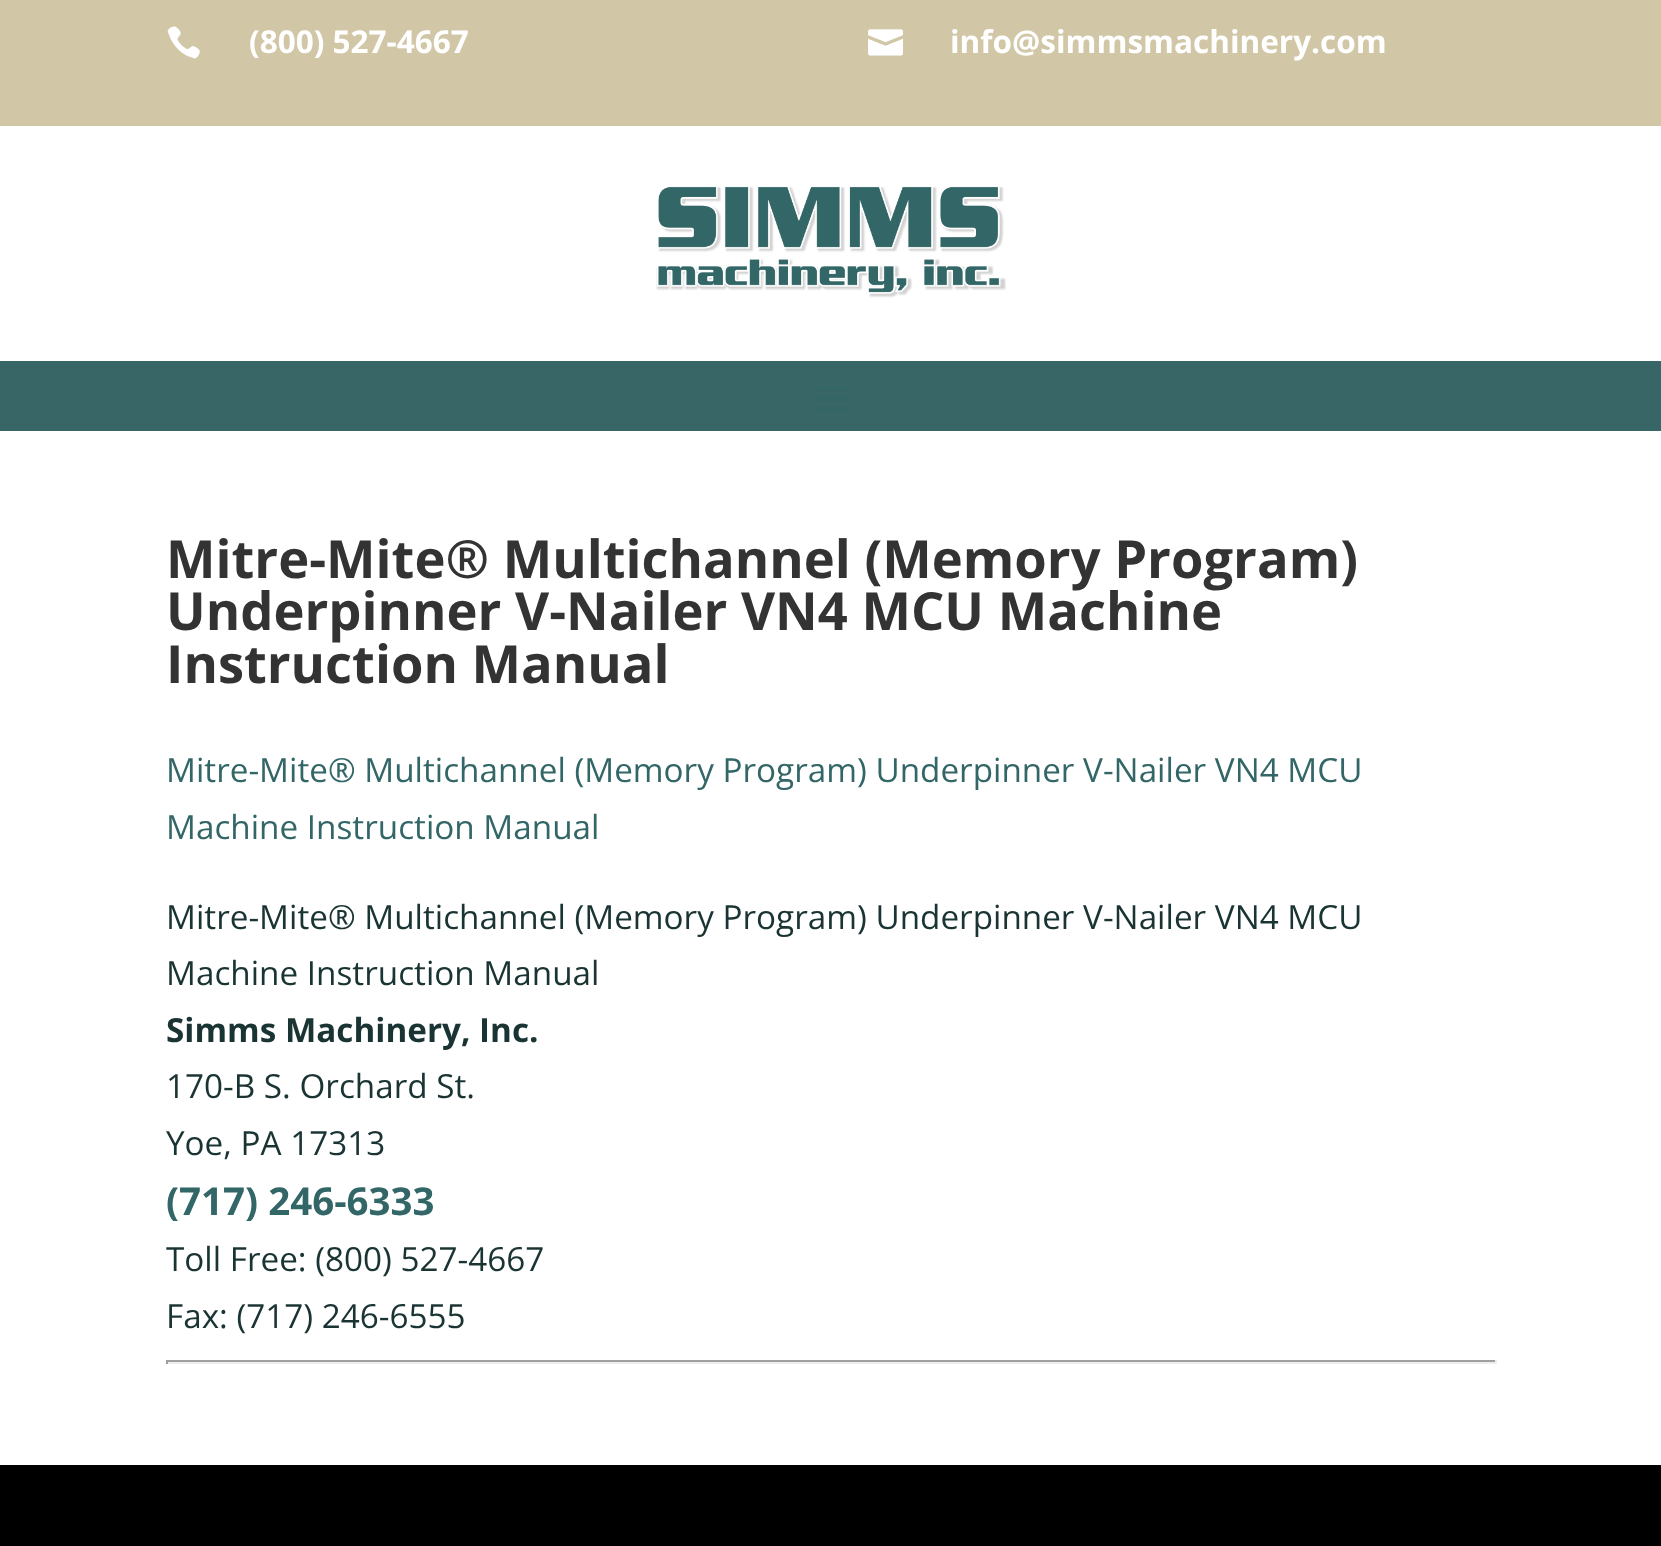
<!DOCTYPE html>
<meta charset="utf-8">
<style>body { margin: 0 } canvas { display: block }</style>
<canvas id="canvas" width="1661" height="1546"></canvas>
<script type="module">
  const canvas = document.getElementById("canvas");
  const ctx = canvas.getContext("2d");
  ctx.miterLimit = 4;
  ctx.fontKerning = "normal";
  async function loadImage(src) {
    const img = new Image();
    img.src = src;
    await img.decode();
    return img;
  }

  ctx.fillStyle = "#ffffff";
  ctx.fillRect(0, 0, 1661, 1546);
  ctx.fillStyle = "#d1c7a7";
  ctx.fillRect(0, 0, 1661, 126);
  ctx.drawImage(await loadImage("img1.png"), 167, 26, 33, 33);
  ctx.font = "bold 31.5px Open Sans";
  ctx.fillStyle = "#ffffff";
  ctx.fillText("(800) 527-4667", 249, 53);
  ctx.drawImage(await loadImage("img2.png"), 868, 29, 35, 27);
  ctx.fillText("info@simmsmachinery.com", 950, 53);
  ctx.drawImage(await loadImage("img3.png"), 656, 186, 350, 112);
  ctx.fillStyle = "#386566";
  ctx.fillRect(0, 361, 1661, 70);
  ctx.drawImage(await loadImage("img4.png"), 814, 387, 34, 24);
  ctx.font = "bold 52.5px Open Sans";
  ctx.fillStyle = "#333333";
  ctx.fillText("Mitre-Mite® Multichannel (Memory Program)", 166, 578);
  ctx.fillText("Underpinner V-Nailer VN4 MCU Machine", 166, 630);
  ctx.fillText("Instruction Manual", 166, 683);
  ctx.font = "33.25px Open Sans";
  ctx.fillStyle = "#336666";
  ctx.fillText("Mitre-Mite® Multichannel (Memory Program) Underpinner V-Nailer VN4 MCU", 166, 782);
  ctx.fillText("Machine Instruction Manual", 166, 839);
  ctx.fillStyle = "#1a3333";
  ctx.fillText("Mitre-Mite® Multichannel (Memory Program) Underpinner V-Nailer VN4 MCU", 166, 929);
  ctx.fillText("Machine Instruction Manual", 166, 985);
  ctx.font = "bold 33.25px Open Sans";
  ctx.fillText("Simms Machinery, Inc.", 166, 1042);
  ctx.font = "33.25px Open Sans";
  ctx.fillText("170-B S. Orchard St.", 166, 1098);
  ctx.fillText("Yoe, PA 17313", 166, 1155);
  ctx.font = "bold 38.5px Open Sans";
  ctx.fillStyle = "#336666";
  ctx.fillText("(717) 246-6333", 166, 1215);
  ctx.font = "33.25px Open Sans";
  ctx.fillStyle = "#1a3333";
  ctx.fillText("Toll Free: (800) 527-4667", 166, 1271);
  ctx.fillText("Fax: (717) 246-6555", 166, 1328);
  ctx.fillStyle = "#9f9f9f";
  ctx.fillRect(166, 1360, 1330, 2);
  ctx.fillStyle = "#eeeeee";
  ctx.fillRect(1495, 1360, 2, 4);
  ctx.fillRect(166, 1362, 1330, 2);
  ctx.fillStyle = "#9f9f9f";
  ctx.fillRect(166, 1360, 2, 4);
  ctx.fillStyle = "#000000";
  ctx.fillRect(0, 1465, 1661, 81);
</script>
